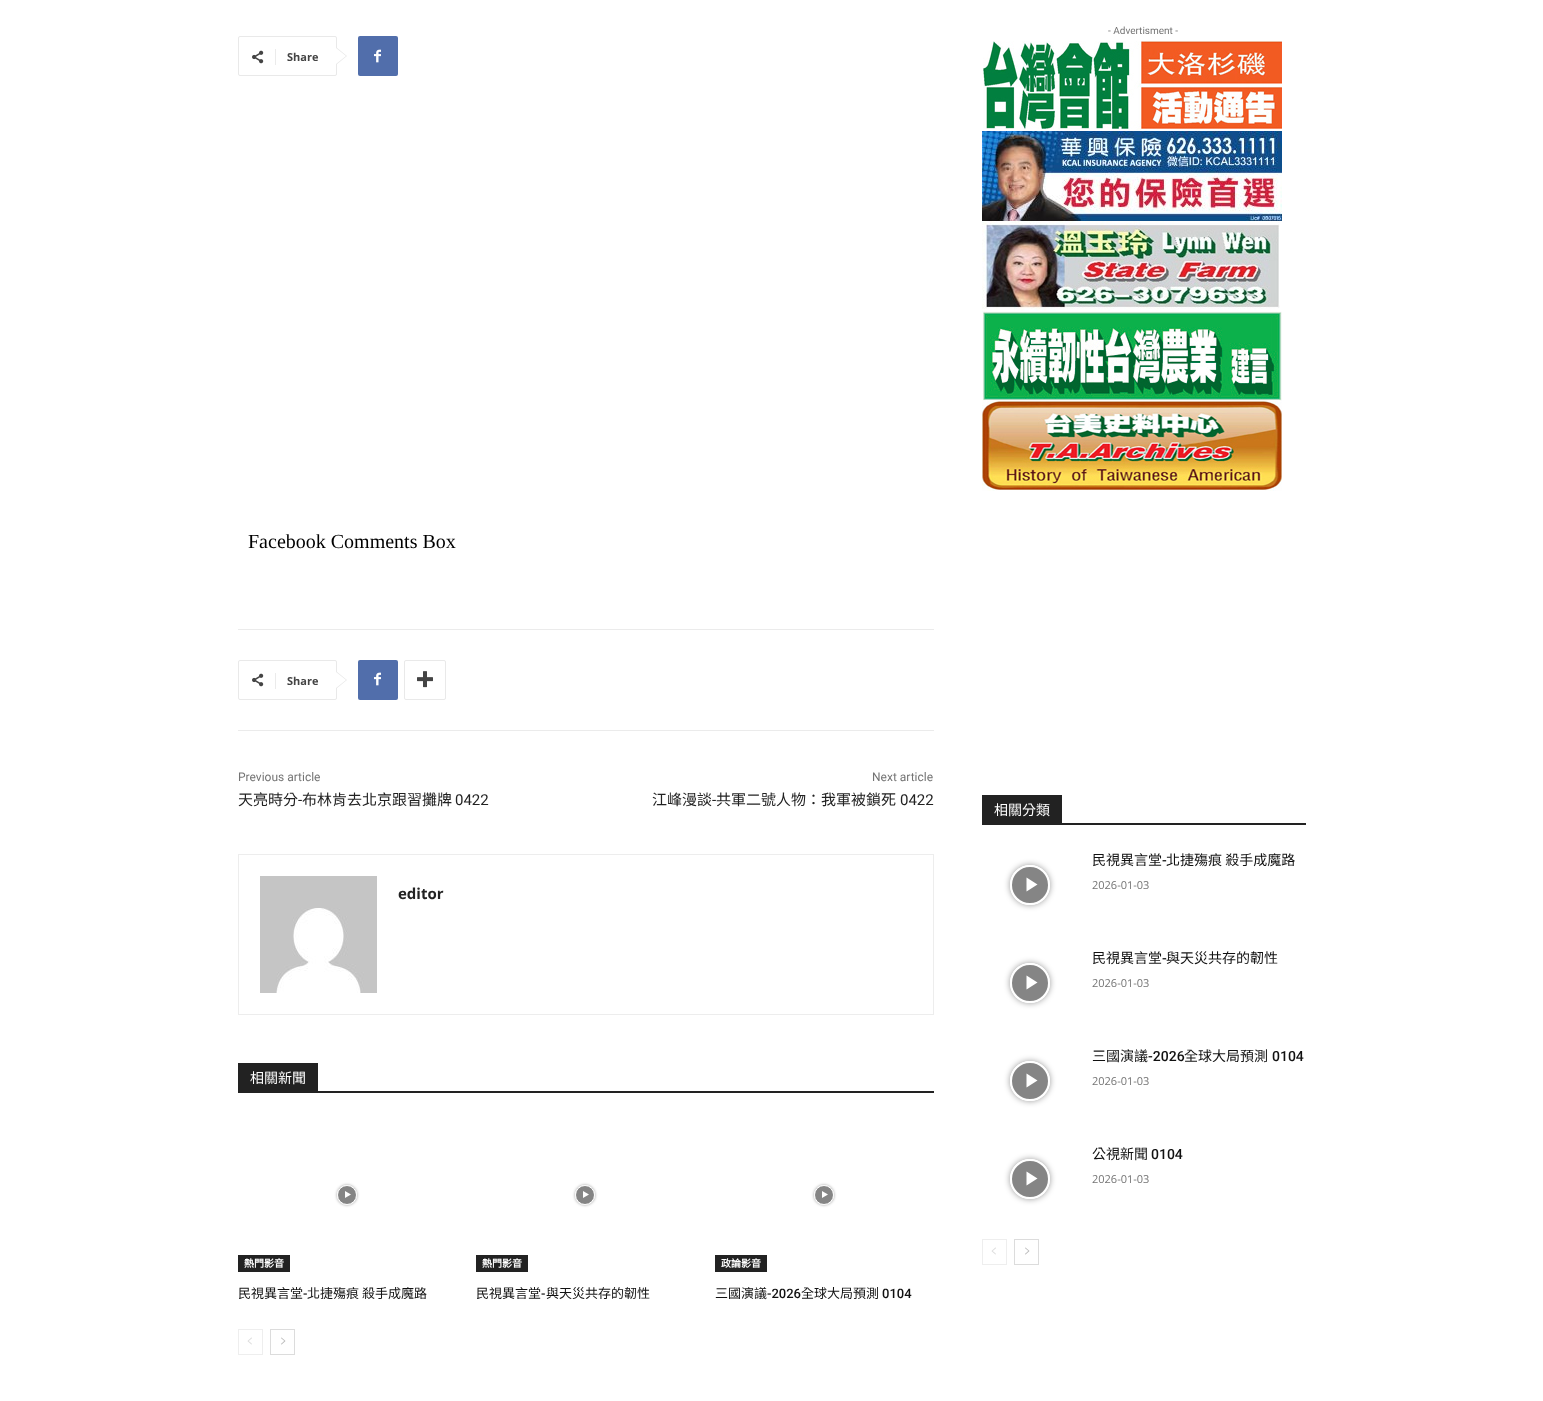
<!DOCTYPE html>
<meta charset="utf-8">
<style>body { margin: 0 } canvas { display: block }</style>
<canvas id="canvas" width="1543" height="1401"></canvas>
<script type="module">
  const canvas = document.getElementById("canvas");
  const ctx = canvas.getContext("2d");
  ctx.miterLimit = 4;
  ctx.fontKerning = "normal";
  async function loadImage(src) {
    const img = new Image();
    img.src = src;
    await img.decode();
    return img;
  }

  ctx.fillStyle = "#ffffff";
  ctx.fillRect(0, 0, 1543, 1401);
  ctx.beginPath();
  ctx.roundRect(238.5, 36.5, 98, 39, 1.5);
  ctx.strokeStyle = "#e9e9e9";
  ctx.stroke();
  ctx.fillStyle = "#e9e9e9";
  ctx.beginPath();
  ctx.moveTo(336, 65);
  ctx.lineTo(336, 47);
  ctx.lineTo(347, 56);
  ctx.closePath();
  ctx.fill();
  ctx.drawImage(await loadImage("img1.png"), 252, 50, 12, 14);
  ctx.fillStyle = "#ebebeb";
  ctx.fillRect(275, 49, 1, 16);
  ctx.font = "bold 11px Open Sans";
  ctx.fillStyle = "#444444";
  ctx.fillText("Share", 287, 61);
  ctx.fillStyle = "#ffffff";
  ctx.beginPath();
  ctx.moveTo(336, 64);
  ctx.lineTo(336, 48);
  ctx.lineTo(346, 56);
  ctx.closePath();
  ctx.fill();
  ctx.fillStyle = "#516eab";
  ctx.beginPath();
  ctx.roundRect(358, 36, 40, 40, 2);
  ctx.fill();
  ctx.drawImage(await loadImage("img2.png"), 374, 49, 7, 14);
  ctx.font = "20px Liberation Serif";
  ctx.fillStyle = "#000000";
  ctx.fillText("Facebook Comments Box", 248, 548);
  ctx.fillStyle = "#ebebeb";
  ctx.fillRect(238, 629, 696, 1);
  ctx.beginPath();
  ctx.roundRect(238.5, 660.5, 98, 39, 1.5);
  ctx.stroke();
  ctx.fillStyle = "#e9e9e9";
  ctx.beginPath();
  ctx.moveTo(336, 689);
  ctx.lineTo(336, 671);
  ctx.lineTo(347, 680);
  ctx.closePath();
  ctx.fill();
  ctx.drawImage(await loadImage("img1.png"), 252, 673, 12, 14);
  ctx.fillStyle = "#ebebeb";
  ctx.fillRect(275, 673, 1, 16);
  ctx.font = "bold 11px Open Sans";
  ctx.fillStyle = "#444444";
  ctx.fillText("Share", 287, 685);
  ctx.fillStyle = "#ffffff";
  ctx.beginPath();
  ctx.moveTo(336, 688);
  ctx.lineTo(336, 672);
  ctx.lineTo(346, 680);
  ctx.closePath();
  ctx.fill();
  ctx.fillStyle = "#516eab";
  ctx.beginPath();
  ctx.roundRect(358, 660, 40, 40, 2);
  ctx.fill();
  ctx.drawImage(await loadImage("img2.png"), 374, 672, 7, 14);
  ctx.beginPath();
  ctx.roundRect(404.5, 660.5, 41, 39, 1.5);
  ctx.stroke();
  ctx.drawImage(await loadImage("img3.png"), 417, 671, 16, 17);
  ctx.fillStyle = "#ebebeb";
  ctx.fillRect(238, 730, 696, 1);
  ctx.font = "12px Roboto";
  ctx.fillStyle = "#747474";
  ctx.fillText("Previous article", 238, 781);
  ctx.font = "15px Noto Sans CJK TC";
  ctx.fillStyle = "#222222";
  ctx.fillText("天亮時分", 238, 805);
  ctx.font = "15px Roboto";
  ctx.fillText("-", 298, 805);
  ctx.font = "15px Noto Sans CJK TC";
  ctx.fillText("布林肯去北京跟習攤牌", 302, 805);
  ctx.font = "15px Roboto";
  ctx.fillText("0422", 455, 805);
  ctx.font = "12px Roboto";
  ctx.fillStyle = "#747474";
  ctx.fillText("Next article", 872, 781);
  ctx.font = "15px Noto Sans CJK TC";
  ctx.fillStyle = "#222222";
  ctx.fillText("江峰漫談", 652, 805);
  ctx.font = "15px Roboto";
  ctx.fillText("-", 712, 805);
  ctx.font = "15px Noto Sans CJK TC";
  ctx.fillText("共軍二號人物：我軍被鎖死", 716, 805);
  ctx.font = "15px Roboto";
  ctx.fillText("0422", 900, 805);
  ctx.strokeStyle = "#ededed";
  ctx.strokeRect(238.5, 854.5, 695, 160);
  ctx.drawImage(await loadImage("img4.png"), 260, 876, 117, 117);
  ctx.font = "bold 15px Open Sans";
  ctx.fillText("editor", 398, 899);
  ctx.fillRect(238, 1091, 696, 2);
  ctx.fillRect(238, 1063, 80, 28);
  ctx.font = "14px Noto Sans CJK TC";
  ctx.fillStyle = "#ffffff";
  ctx.fillText("相關新聞", 250, 1083);
  ctx.save();
  ctx.beginPath();
  ctx.moveTo(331, 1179);
  ctx.lineTo(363, 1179);
  ctx.lineTo(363, 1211);
  ctx.lineTo(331, 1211);
  ctx.closePath();
  ctx.moveTo(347, 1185);
  ctx.bezierCurveTo(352.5, 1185, 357, 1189.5, 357, 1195);
  ctx.bezierCurveTo(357, 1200.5, 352.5, 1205, 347, 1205);
  ctx.bezierCurveTo(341.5, 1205, 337, 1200.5, 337, 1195);
  ctx.bezierCurveTo(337, 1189.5, 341.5, 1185, 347, 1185);
  ctx.closePath();
  ctx.clip("evenodd");
  ctx.fillStyle = "rgba(0, 0, 0, 0.4)";
  ctx.filter = "blur(1.5px)";
  ctx.beginPath();
  ctx.roundRect(337, 1185, 20, 20, 10);
  ctx.fill();
  ctx.filter = "none";
  ctx.restore();
  ctx.fillStyle = "rgba(0, 0, 0, 0.48)";
  ctx.beginPath();
  ctx.arc(347, 1195, 9.5, 0, Math.PI * 2);
  ctx.fill();
  ctx.strokeStyle = "#ffffff";
  ctx.stroke();
  ctx.fillStyle = "#ffffff";
  ctx.beginPath();
  ctx.moveTo(345, 1191);
  ctx.lineTo(345, 1198);
  ctx.lineTo(351, 1194.5);
  ctx.closePath();
  ctx.fill();
  ctx.fillStyle = "#222222";
  ctx.fillRect(238, 1255, 52, 17);
  ctx.font = "bold 10px Noto Sans CJK TC";
  ctx.fillStyle = "#ffffff";
  ctx.fillText("熱門影音", 244, 1267);
  ctx.font = "13px Noto Sans CJK TC";
  ctx.fillStyle = "#111111";
  ctx.fillText("民視異言堂", 238, 1298);
  ctx.font = "500 13px Roboto";
  ctx.fillText("-", 303, 1298);
  ctx.font = "13px Noto Sans CJK TC";
  ctx.fillText("北捷殤痕 殺手成魔路", 307, 1298);
  ctx.save();
  ctx.beginPath();
  ctx.moveTo(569, 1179);
  ctx.lineTo(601, 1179);
  ctx.lineTo(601, 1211);
  ctx.lineTo(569, 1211);
  ctx.closePath();
  ctx.moveTo(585, 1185);
  ctx.bezierCurveTo(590.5, 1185, 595, 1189.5, 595, 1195);
  ctx.bezierCurveTo(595, 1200.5, 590.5, 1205, 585, 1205);
  ctx.bezierCurveTo(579.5, 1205, 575, 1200.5, 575, 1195);
  ctx.bezierCurveTo(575, 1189.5, 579.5, 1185, 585, 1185);
  ctx.closePath();
  ctx.clip("evenodd");
  ctx.fillStyle = "rgba(0, 0, 0, 0.4)";
  ctx.filter = "blur(1.5px)";
  ctx.beginPath();
  ctx.roundRect(575, 1185, 20, 20, 10);
  ctx.fill();
  ctx.filter = "none";
  ctx.restore();
  ctx.fillStyle = "rgba(0, 0, 0, 0.48)";
  ctx.beginPath();
  ctx.arc(585, 1195, 9.5, 0, Math.PI * 2);
  ctx.fill();
  ctx.stroke();
  ctx.fillStyle = "#ffffff";
  ctx.beginPath();
  ctx.moveTo(583, 1191);
  ctx.lineTo(583, 1198);
  ctx.lineTo(589, 1194.5);
  ctx.closePath();
  ctx.fill();
  ctx.fillStyle = "#222222";
  ctx.fillRect(476, 1255, 52, 17);
  ctx.font = "bold 10px Noto Sans CJK TC";
  ctx.fillStyle = "#ffffff";
  ctx.fillText("熱門影音", 482, 1267);
  ctx.font = "13px Noto Sans CJK TC";
  ctx.fillStyle = "#111111";
  ctx.fillText("民視異言堂", 476, 1298);
  ctx.font = "500 13px Roboto";
  ctx.fillText("-", 541, 1298);
  ctx.font = "13px Noto Sans CJK TC";
  ctx.fillText("與天災共存的韌性", 546, 1298);
  ctx.save();
  ctx.beginPath();
  ctx.moveTo(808, 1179);
  ctx.lineTo(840, 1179);
  ctx.lineTo(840, 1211);
  ctx.lineTo(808, 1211);
  ctx.closePath();
  ctx.moveTo(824, 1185);
  ctx.bezierCurveTo(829.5, 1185, 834, 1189.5, 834, 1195);
  ctx.bezierCurveTo(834, 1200.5, 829.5, 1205, 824, 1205);
  ctx.bezierCurveTo(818.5, 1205, 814, 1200.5, 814, 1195);
  ctx.bezierCurveTo(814, 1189.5, 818.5, 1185, 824, 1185);
  ctx.closePath();
  ctx.clip("evenodd");
  ctx.fillStyle = "rgba(0, 0, 0, 0.4)";
  ctx.filter = "blur(1.5px)";
  ctx.beginPath();
  ctx.roundRect(814, 1185, 20, 20, 10);
  ctx.fill();
  ctx.filter = "none";
  ctx.restore();
  ctx.fillStyle = "rgba(0, 0, 0, 0.48)";
  ctx.beginPath();
  ctx.arc(824, 1195, 9.5, 0, Math.PI * 2);
  ctx.fill();
  ctx.stroke();
  ctx.fillStyle = "#ffffff";
  ctx.beginPath();
  ctx.moveTo(822, 1191);
  ctx.lineTo(822, 1198);
  ctx.lineTo(828, 1194.5);
  ctx.closePath();
  ctx.fill();
  ctx.fillStyle = "#222222";
  ctx.fillRect(715, 1255, 52, 17);
  ctx.font = "bold 10px Noto Sans CJK TC";
  ctx.fillStyle = "#ffffff";
  ctx.fillText("政論影音", 721, 1267);
  ctx.font = "13px Noto Sans CJK TC";
  ctx.fillStyle = "#111111";
  ctx.fillText("三國演議", 715, 1298);
  ctx.font = "500 13px Roboto";
  ctx.fillText("-2026", 767, 1298);
  ctx.font = "13px Noto Sans CJK TC";
  ctx.fillText("全球大局預測", 801, 1298);
  ctx.font = "500 13px Roboto";
  ctx.fillText("0104", 882, 1298);
  ctx.strokeStyle = "#eeeeee";
  ctx.strokeRect(238.5, 1329.5, 24, 25);
  ctx.drawImage(await loadImage("img5.png"), 247, 1337, 5, 8);
  ctx.strokeStyle = "#dcdcdc";
  ctx.strokeRect(270.5, 1329.5, 24, 25);
  ctx.drawImage(await loadImage("img6.png"), 281, 1337, 5, 8);
  ctx.font = "10px Roboto";
  ctx.fillStyle = "#747474";
  ctx.fillText("- Advertisment -", 1108, 34);
  ctx.drawImage(await loadImage("img7.png"), 983, 41, 299, 89);
  ctx.drawImage(await loadImage("img8.png"), 982, 131, 300, 90);
  ctx.drawImage(await loadImage("img9.png"), 982, 221, 298, 90);
  ctx.drawImage(await loadImage("img10.png"), 982, 311, 300, 90);
  ctx.drawImage(await loadImage("img11.png"), 982, 401, 300, 90);
  ctx.fillStyle = "#222222";
  ctx.fillRect(982, 823, 324, 2);
  ctx.fillRect(982, 795, 80, 28);
  ctx.font = "14px Noto Sans CJK TC";
  ctx.fillStyle = "#ffffff";
  ctx.fillText("相關分類", 994, 815);
  ctx.save();
  ctx.beginPath();
  ctx.moveTo(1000, 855);
  ctx.lineTo(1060, 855);
  ctx.lineTo(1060, 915);
  ctx.lineTo(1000, 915);
  ctx.closePath();
  ctx.moveTo(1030, 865);
  ctx.bezierCurveTo(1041, 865, 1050, 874, 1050, 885);
  ctx.bezierCurveTo(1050, 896, 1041, 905, 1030, 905);
  ctx.bezierCurveTo(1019, 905, 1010, 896, 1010, 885);
  ctx.bezierCurveTo(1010, 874, 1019, 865, 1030, 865);
  ctx.closePath();
  ctx.clip("evenodd");
  ctx.fillStyle = "rgba(0, 0, 0, 0.4)";
  ctx.filter = "blur(3px)";
  ctx.beginPath();
  ctx.roundRect(1010, 865, 40, 40, 20);
  ctx.fill();
  ctx.filter = "none";
  ctx.restore();
  ctx.fillStyle = "rgba(0, 0, 0, 0.48)";
  ctx.beginPath();
  ctx.arc(1030, 885, 19, 0, Math.PI * 2);
  ctx.fill();
  ctx.strokeStyle = "#ffffff";
  ctx.lineWidth = 2;
  ctx.stroke();
  ctx.fillStyle = "#ffffff";
  ctx.beginPath();
  ctx.moveTo(1026.5, 877.5);
  ctx.lineTo(1026.5, 891.5);
  ctx.lineTo(1037.5, 884.5);
  ctx.closePath();
  ctx.fill();
  ctx.fillStyle = "#111111";
  ctx.fillText("民視異言堂", 1092, 865);
  ctx.font = "500 14px Roboto";
  ctx.fillText("-", 1162, 865);
  ctx.font = "14px Noto Sans CJK TC";
  ctx.fillText("北捷殤痕 殺手成魔路", 1166, 865);
  ctx.font = "11px Open Sans";
  ctx.fillStyle = "#747474";
  ctx.fillText("2026-01-03", 1092, 889);
  ctx.save();
  ctx.beginPath();
  ctx.moveTo(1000, 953);
  ctx.lineTo(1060, 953);
  ctx.lineTo(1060, 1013);
  ctx.lineTo(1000, 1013);
  ctx.closePath();
  ctx.moveTo(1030, 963);
  ctx.bezierCurveTo(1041, 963, 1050, 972, 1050, 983);
  ctx.bezierCurveTo(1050, 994, 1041, 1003, 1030, 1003);
  ctx.bezierCurveTo(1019, 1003, 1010, 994, 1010, 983);
  ctx.bezierCurveTo(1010, 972, 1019, 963, 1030, 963);
  ctx.closePath();
  ctx.clip("evenodd");
  ctx.fillStyle = "rgba(0, 0, 0, 0.4)";
  ctx.filter = "blur(3px)";
  ctx.beginPath();
  ctx.roundRect(1010, 963, 40, 40, 20);
  ctx.fill();
  ctx.filter = "none";
  ctx.restore();
  ctx.fillStyle = "rgba(0, 0, 0, 0.48)";
  ctx.beginPath();
  ctx.arc(1030, 983, 19, 0, Math.PI * 2);
  ctx.fill();
  ctx.stroke();
  ctx.fillStyle = "#ffffff";
  ctx.beginPath();
  ctx.moveTo(1026.5, 975.5);
  ctx.lineTo(1026.5, 989.5);
  ctx.lineTo(1037.5, 982.5);
  ctx.closePath();
  ctx.fill();
  ctx.font = "14px Noto Sans CJK TC";
  ctx.fillStyle = "#111111";
  ctx.fillText("民視異言堂", 1092, 963);
  ctx.font = "500 14px Roboto";
  ctx.fillText("-", 1162, 963);
  ctx.font = "14px Noto Sans CJK TC";
  ctx.fillText("與天災共存的韌性", 1166, 963);
  ctx.font = "11px Open Sans";
  ctx.fillStyle = "#747474";
  ctx.fillText("2026-01-03", 1092, 987);
  ctx.save();
  ctx.beginPath();
  ctx.moveTo(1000, 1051);
  ctx.lineTo(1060, 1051);
  ctx.lineTo(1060, 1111);
  ctx.lineTo(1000, 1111);
  ctx.closePath();
  ctx.moveTo(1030, 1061);
  ctx.bezierCurveTo(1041, 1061, 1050, 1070, 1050, 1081);
  ctx.bezierCurveTo(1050, 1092, 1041, 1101, 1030, 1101);
  ctx.bezierCurveTo(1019, 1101, 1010, 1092, 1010, 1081);
  ctx.bezierCurveTo(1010, 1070, 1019, 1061, 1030, 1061);
  ctx.closePath();
  ctx.clip("evenodd");
  ctx.fillStyle = "rgba(0, 0, 0, 0.4)";
  ctx.filter = "blur(3px)";
  ctx.beginPath();
  ctx.roundRect(1010, 1061, 40, 40, 20);
  ctx.fill();
  ctx.filter = "none";
  ctx.restore();
  ctx.fillStyle = "rgba(0, 0, 0, 0.48)";
  ctx.beginPath();
  ctx.arc(1030, 1081, 19, 0, Math.PI * 2);
  ctx.fill();
  ctx.stroke();
  ctx.fillStyle = "#ffffff";
  ctx.beginPath();
  ctx.moveTo(1026.5, 1073.5);
  ctx.lineTo(1026.5, 1087.5);
  ctx.lineTo(1037.5, 1080.5);
  ctx.closePath();
  ctx.fill();
  ctx.font = "14px Noto Sans CJK TC";
  ctx.fillStyle = "#111111";
  ctx.fillText("三國演議", 1092, 1061);
  ctx.font = "500 14px Roboto";
  ctx.fillText("-2026", 1148, 1061);
  ctx.font = "14px Noto Sans CJK TC";
  ctx.fillText("全球大局預測", 1184, 1061);
  ctx.font = "500 14px Roboto";
  ctx.fillText("0104", 1272, 1061);
  ctx.font = "11px Open Sans";
  ctx.fillStyle = "#747474";
  ctx.fillText("2026-01-03", 1092, 1085);
  ctx.save();
  ctx.beginPath();
  ctx.moveTo(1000, 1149);
  ctx.lineTo(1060, 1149);
  ctx.lineTo(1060, 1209);
  ctx.lineTo(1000, 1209);
  ctx.closePath();
  ctx.moveTo(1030, 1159);
  ctx.bezierCurveTo(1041, 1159, 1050, 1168, 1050, 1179);
  ctx.bezierCurveTo(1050, 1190, 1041, 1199, 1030, 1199);
  ctx.bezierCurveTo(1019, 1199, 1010, 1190, 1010, 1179);
  ctx.bezierCurveTo(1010, 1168, 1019, 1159, 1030, 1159);
  ctx.closePath();
  ctx.clip("evenodd");
  ctx.fillStyle = "rgba(0, 0, 0, 0.4)";
  ctx.filter = "blur(3px)";
  ctx.beginPath();
  ctx.roundRect(1010, 1159, 40, 40, 20);
  ctx.fill();
  ctx.filter = "none";
  ctx.restore();
  ctx.fillStyle = "rgba(0, 0, 0, 0.48)";
  ctx.beginPath();
  ctx.arc(1030, 1179, 19, 0, Math.PI * 2);
  ctx.fill();
  ctx.stroke();
  ctx.fillStyle = "#ffffff";
  ctx.beginPath();
  ctx.moveTo(1026.5, 1171.5);
  ctx.lineTo(1026.5, 1185.5);
  ctx.lineTo(1037.5, 1178.5);
  ctx.closePath();
  ctx.fill();
  ctx.font = "14px Noto Sans CJK TC";
  ctx.fillStyle = "#111111";
  ctx.fillText("公視新聞", 1092, 1159);
  ctx.font = "500 14px Roboto";
  ctx.fillText("0104", 1151, 1159);
  ctx.font = "11px Open Sans";
  ctx.fillStyle = "#747474";
  ctx.fillText("2026-01-03", 1092, 1183);
  ctx.strokeStyle = "#eeeeee";
  ctx.lineWidth = 1;
  ctx.strokeRect(982.5, 1239.5, 24, 25);
  ctx.drawImage(await loadImage("img5.png"), 991, 1247, 5, 8);
  ctx.strokeStyle = "#dcdcdc";
  ctx.strokeRect(1014.5, 1239.5, 24, 25);
  ctx.drawImage(await loadImage("img6.png"), 1025, 1247, 5, 8);
</script>
